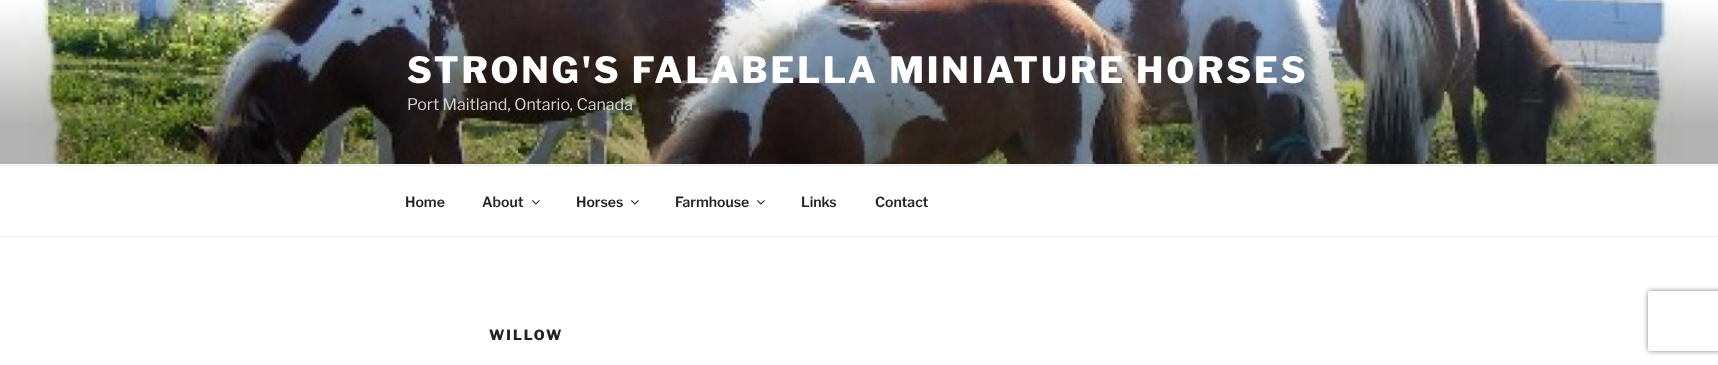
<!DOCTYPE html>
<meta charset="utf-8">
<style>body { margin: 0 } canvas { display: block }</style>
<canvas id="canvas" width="1718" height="365"></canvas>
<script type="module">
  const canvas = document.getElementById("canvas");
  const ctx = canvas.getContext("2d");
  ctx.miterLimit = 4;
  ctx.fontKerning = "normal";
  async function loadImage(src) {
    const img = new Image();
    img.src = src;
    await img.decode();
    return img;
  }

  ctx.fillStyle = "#ffffff";
  ctx.fillRect(0, 0, 1718, 365);
  ctx.fillStyle = "#fafafa";
  ctx.fillRect(0, 164, 1718, 1);
  ctx.drawImage(await loadImage("img1.png"), 0, 0, 1718, 164);
  ctx.letterSpacing = "2.9px";
  ctx.font = "100 36px Libre Franklin";
  ctx.fillStyle = "#ffffff";
  ctx.fillText("STRONG'S FALABELLA MINIATURE HORSES", 407, 83);
  ctx.letterSpacing = "0px";
  ctx.font = "100 16px 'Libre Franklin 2'";
  ctx.fillStyle = "#d3d2d1";
  ctx.fillText("Port Maitland, Ontario, Canada", 407, 110);
  ctx.fillStyle = "#eeeeee";
  ctx.fillRect(0, 165, 1718, 1);
  ctx.fillRect(0, 236, 1718, 1);
  ctx.font = "100 14px 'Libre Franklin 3'";
  ctx.fillStyle = "#222222";
  ctx.fillText("Home", 405, 207);
  ctx.fillText("About", 482, 207);
  ctx.drawImage(await loadImage("img2.png"), 532, 200, 8, 5);
  ctx.fillText("Horses", 576, 207);
  ctx.drawImage(await loadImage("img2.png"), 631, 200, 8, 5);
  ctx.fillText("Farmhouse", 675, 207);
  ctx.drawImage(await loadImage("img2.png"), 757, 200, 8, 5);
  ctx.fillText("Links", 801, 207);
  ctx.fillText("Contact", 875, 207);
  ctx.letterSpacing = "2px";
  ctx.font = "100 14px Libre Franklin";
  ctx.fillText("WILLOW", 489, 340);
  ctx.save();
  ctx.beginPath();
  ctx.moveTo(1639, 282);
  ctx.lineTo(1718, 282);
  ctx.lineTo(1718, 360);
  ctx.lineTo(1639, 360);
  ctx.closePath();
  ctx.moveTo(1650, 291);
  ctx.lineTo(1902, 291);
  ctx.bezierCurveTo(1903, 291, 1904, 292, 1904, 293);
  ctx.lineTo(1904, 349);
  ctx.bezierCurveTo(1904, 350, 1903, 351, 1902, 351);
  ctx.lineTo(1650, 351);
  ctx.bezierCurveTo(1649, 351, 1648, 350, 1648, 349);
  ctx.lineTo(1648, 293);
  ctx.bezierCurveTo(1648, 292, 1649, 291, 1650, 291);
  ctx.closePath();
  ctx.clip("evenodd");
  ctx.fillStyle = "#808080";
  ctx.filter = "blur(2.5px)";
  ctx.beginPath();
  ctx.roundRect(1648, 291, 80, 60, 2);
  ctx.fill();
  ctx.filter = "none";
  ctx.restore();
</script>
